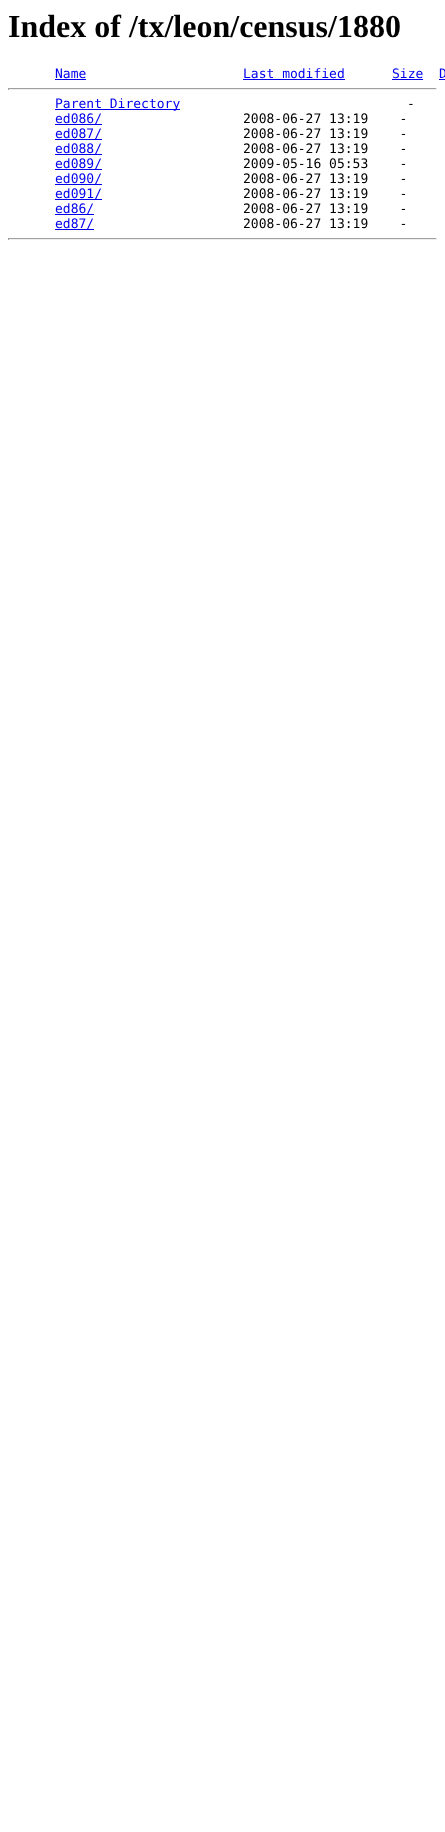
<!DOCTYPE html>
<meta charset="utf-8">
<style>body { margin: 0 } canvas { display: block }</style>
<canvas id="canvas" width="445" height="1832"></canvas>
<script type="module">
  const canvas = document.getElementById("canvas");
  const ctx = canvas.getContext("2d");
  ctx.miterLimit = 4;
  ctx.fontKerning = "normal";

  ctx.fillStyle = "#ffffff";
  ctx.fillRect(0, 0, 445, 1832);
  ctx.font = "bold 32px Liberation Serif";
  ctx.fillStyle = "#000000";
  ctx.fillText("Index of /tx/leon/census/1880", 8, 37);
  ctx.font = "13px DejaVu Sans Mono";
  ctx.fillStyle = "#0000ee";
  ctx.fillText("Name", 55, 78);
  ctx.fillRect(55, 79, 31, 1);
  ctx.fillText("Last modified", 243, 78);
  ctx.fillRect(243, 79, 102, 1);
  ctx.fillText("Size", 392, 78);
  ctx.fillRect(392, 79, 31, 1);
  ctx.fillText("D", 439, 78);
  ctx.fillRect(439, 79, 6, 1);
  ctx.fillStyle = "#9f9f9f";
  ctx.fillRect(8, 88, 429, 1);
  ctx.fillStyle = "#eeeeee";
  ctx.fillRect(436, 88, 1, 2);
  ctx.fillRect(8, 89, 429, 1);
  ctx.fillStyle = "#9f9f9f";
  ctx.fillRect(8, 88, 1, 2);
  ctx.fillStyle = "#0000ee";
  ctx.fillRect(55, 109, 125, 1);
  ctx.fillText("Parent Directory", 55, 108);
  ctx.fillStyle = "#000000";
  ctx.fillText("-", 407, 108);
  ctx.fillStyle = "#0000ee";
  ctx.fillRect(55, 124, 47, 1);
  ctx.fillText("ed086/", 55, 123);
  ctx.fillStyle = "#000000";
  ctx.fillText("2008-06-27 13:19    -", 243, 123);
  ctx.fillStyle = "#0000ee";
  ctx.fillRect(55, 139, 47, 1);
  ctx.fillText("ed087/", 55, 138);
  ctx.fillStyle = "#000000";
  ctx.fillText("2008-06-27 13:19    -", 243, 138);
  ctx.fillStyle = "#0000ee";
  ctx.fillRect(55, 154, 47, 1);
  ctx.fillText("ed088/", 55, 153);
  ctx.fillStyle = "#000000";
  ctx.fillText("2008-06-27 13:19    -", 243, 153);
  ctx.fillStyle = "#0000ee";
  ctx.fillRect(55, 169, 47, 1);
  ctx.fillText("ed089/", 55, 168);
  ctx.fillStyle = "#000000";
  ctx.fillText("2009-05-16 05:53    -", 243, 168);
  ctx.fillStyle = "#0000ee";
  ctx.fillRect(55, 184, 47, 1);
  ctx.fillText("ed090/", 55, 183);
  ctx.fillStyle = "#000000";
  ctx.fillText("2008-06-27 13:19    -", 243, 183);
  ctx.fillStyle = "#0000ee";
  ctx.fillRect(55, 199, 47, 1);
  ctx.fillText("ed091/", 55, 198);
  ctx.fillStyle = "#000000";
  ctx.fillText("2008-06-27 13:19    -", 243, 198);
  ctx.fillStyle = "#0000ee";
  ctx.fillRect(55, 214, 39, 1);
  ctx.fillText("ed86/", 55, 213);
  ctx.fillStyle = "#000000";
  ctx.fillText("2008-06-27 13:19    -", 243, 213);
  ctx.fillStyle = "#0000ee";
  ctx.fillRect(55, 229, 39, 1);
  ctx.fillText("ed87/", 55, 228);
  ctx.fillStyle = "#000000";
  ctx.fillText("2008-06-27 13:19    -", 243, 228);
  ctx.fillStyle = "#9f9f9f";
  ctx.fillRect(8, 238, 429, 1);
  ctx.fillStyle = "#eeeeee";
  ctx.fillRect(436, 238, 1, 2);
  ctx.fillRect(8, 239, 429, 1);
  ctx.fillStyle = "#9f9f9f";
  ctx.fillRect(8, 238, 1, 2);
</script>
